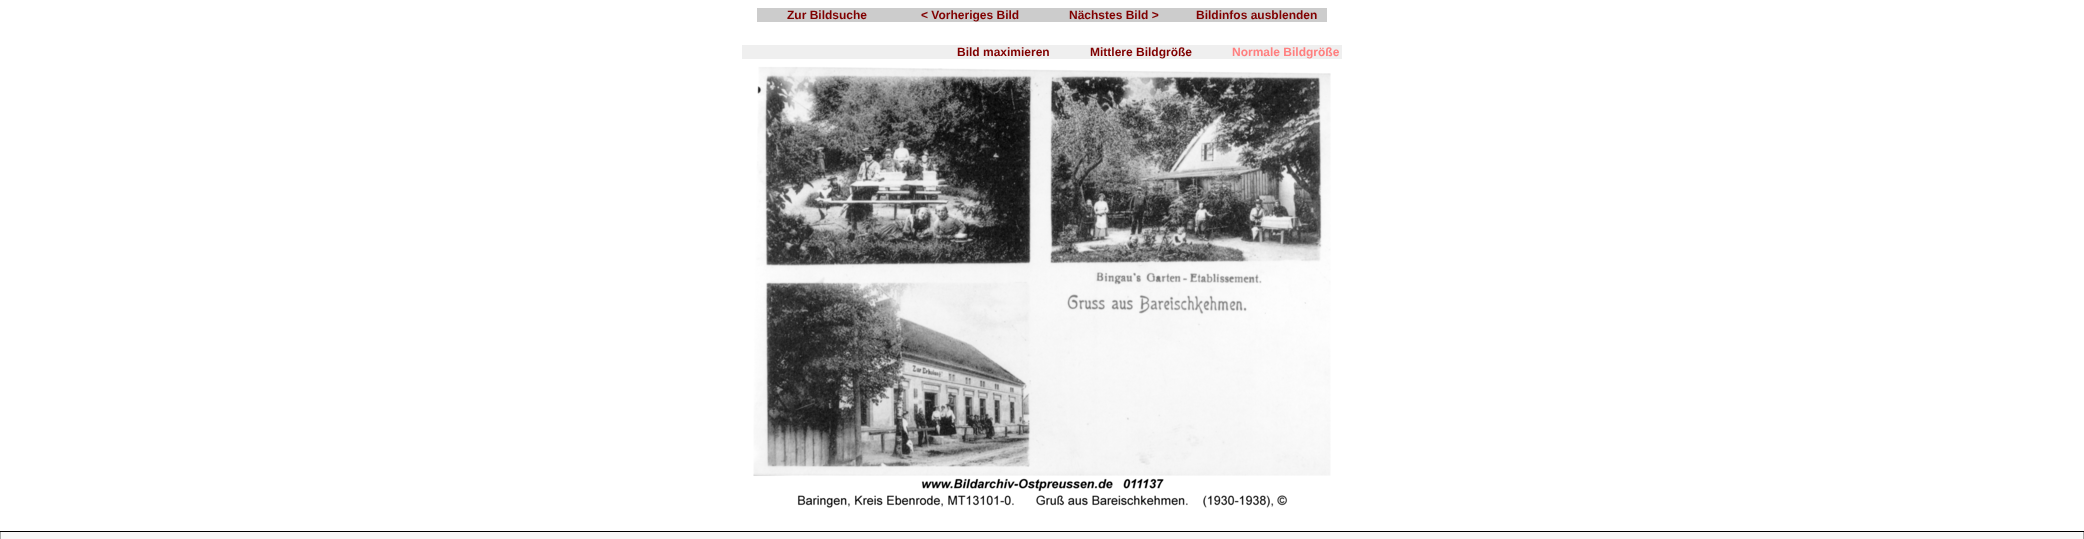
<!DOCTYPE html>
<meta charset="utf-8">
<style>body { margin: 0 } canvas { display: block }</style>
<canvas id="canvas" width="2084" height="539"></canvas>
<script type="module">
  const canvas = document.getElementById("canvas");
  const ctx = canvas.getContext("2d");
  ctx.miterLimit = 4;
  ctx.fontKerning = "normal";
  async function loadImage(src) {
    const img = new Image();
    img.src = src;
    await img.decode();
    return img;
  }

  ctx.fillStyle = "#ffffff";
  ctx.fillRect(0, 0, 2084, 539);
  ctx.fillStyle = "#cccccc";
  ctx.fillRect(757, 8, 570, 14);
  ctx.font = "bold 12px Liberation Sans";
  ctx.fillStyle = "#800000";
  ctx.fillText("Zur Bildsuche", 787, 19);
  ctx.fillText("< Vorheriges Bild", 921, 19);
  ctx.fillText("Nächstes Bild >", 1069, 19);
  ctx.fillText("Bildinfos ausblenden", 1196, 19);
  ctx.fillStyle = "#efefef";
  ctx.fillRect(742, 45, 600, 14);
  ctx.fillStyle = "#800000";
  ctx.fillText("Bild maximieren", 957, 56);
  ctx.fillText("Mittlere Bildgröße", 1090, 56);
  ctx.fillStyle = "#ff7f7f";
  ctx.fillText("Normale Bildgröße", 1232, 56);
  ctx.drawImage(await loadImage("img1.png"), 742, 59, 600, 458);
  ctx.fillStyle = "#f8f8f8";
  ctx.fillRect(1, 532, 2083, 7);
  ctx.fillStyle = "#aaaaaa";
  ctx.fillRect(2083, 531, 1, 8);
  ctx.fillRect(0, 531, 1, 8);
  ctx.fillStyle = "#000000";
  ctx.fillRect(0, 531, 2084, 1);
</script>
